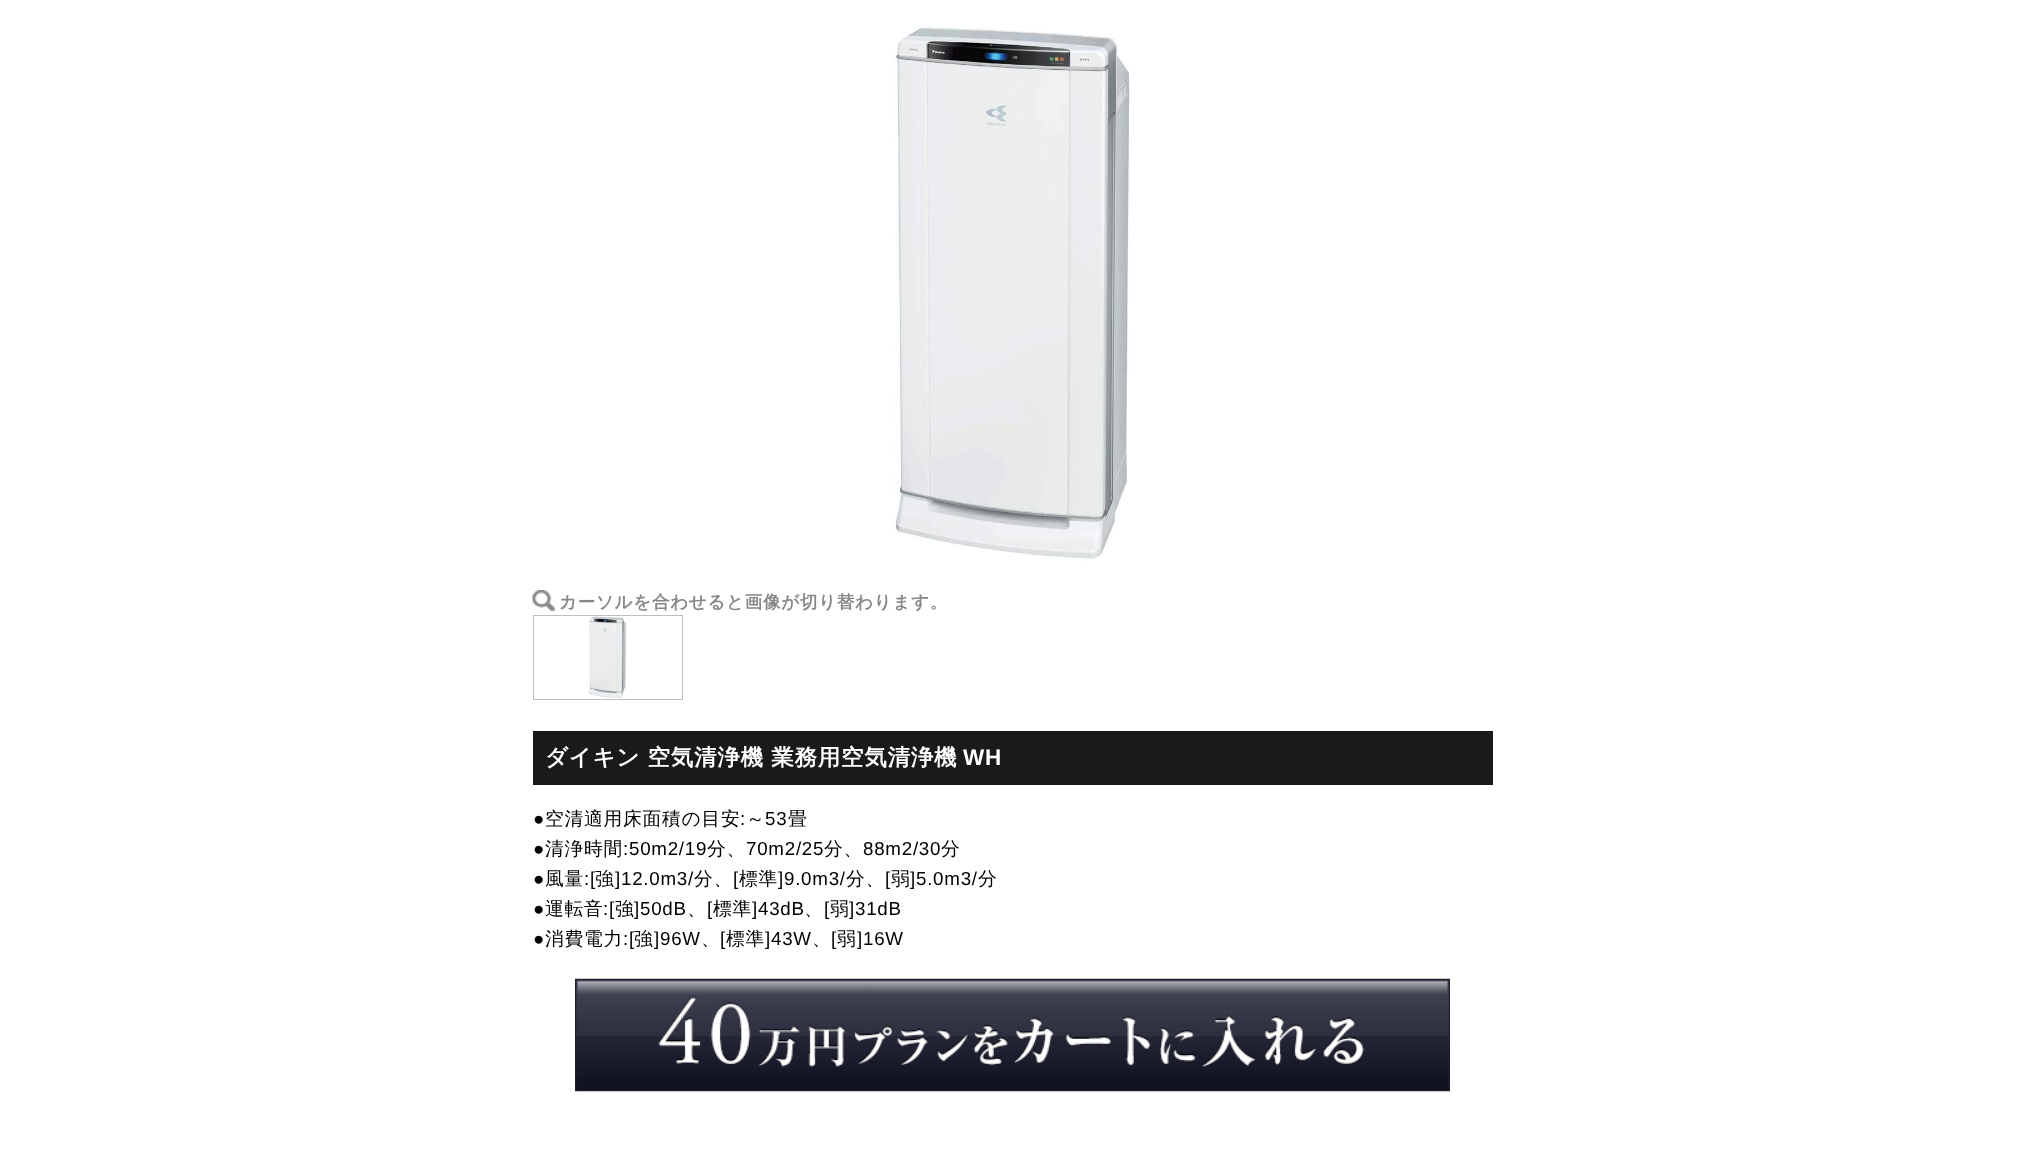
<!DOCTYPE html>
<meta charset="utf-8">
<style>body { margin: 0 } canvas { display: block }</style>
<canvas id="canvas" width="2025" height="1174"></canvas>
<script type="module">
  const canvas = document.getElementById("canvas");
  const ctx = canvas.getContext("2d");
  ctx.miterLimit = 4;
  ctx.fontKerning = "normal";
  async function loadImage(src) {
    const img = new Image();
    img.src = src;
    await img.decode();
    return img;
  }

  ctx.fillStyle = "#ffffff";
  ctx.fillRect(0, 0, 2025, 1174);
  ctx.drawImage(await loadImage("img1.png"), 894, 25, 237, 536);
  ctx.drawImage(await loadImage("img2.png"), 532, 590, 23, 22);
  ctx.letterSpacing = "0.75px";
  ctx.font = "bold 17.5px WenQuanYi Zen Hei";
  ctx.fillStyle = "#888888";
  ctx.fillText("カーソルを合わせると画像が切り替わります。", 559, 608);
  ctx.strokeStyle = "#bfbfbf";
  ctx.strokeRect(533.5, 615.5, 149, 84);
  ctx.drawImage(await loadImage("img3.png"), 589, 616, 38, 83);
  ctx.fillStyle = "#1a1a1a";
  ctx.fillRect(533, 731, 960, 54);
  ctx.font = "bold 22.5px WenQuanYi Zen Hei";
  ctx.fillStyle = "#ffffff";
  ctx.fillText("ダイキン 空気清浄機 業務用空気清浄機", 545, 765);
  ctx.font = "bold 22.5px Liberation Sans";
  ctx.fillText("WH", 963, 765);
  ctx.font = "18.75px Liberation Sans";
  ctx.fillStyle = "#000000";
  ctx.fillText("●", 533, 825);
  ctx.font = "500 18.75px WenQuanYi Zen Hei";
  ctx.fillText("空清適用床面積の目安", 545, 825);
  ctx.font = "18.75px Liberation Sans";
  ctx.fillText(":", 740, 825);
  ctx.font = "500 18.75px WenQuanYi Zen Hei";
  ctx.fillText("～", 746, 825);
  ctx.font = "18.75px Liberation Sans";
  ctx.fillText("53", 765, 825);
  ctx.font = "500 18.75px WenQuanYi Zen Hei";
  ctx.fillText("畳", 788, 825);
  ctx.font = "18.75px Liberation Sans";
  ctx.fillText("●", 533, 855);
  ctx.font = "500 18.75px WenQuanYi Zen Hei";
  ctx.fillText("清浄時間", 545, 855);
  ctx.font = "18.75px Liberation Sans";
  ctx.fillText(":50m2/19", 623, 855);
  ctx.font = "500 18.75px WenQuanYi Zen Hei";
  ctx.fillText("分、", 707, 855);
  ctx.font = "18.75px Liberation Sans";
  ctx.fillText("70m2/25", 746, 855);
  ctx.font = "500 18.75px WenQuanYi Zen Hei";
  ctx.fillText("分、", 824, 855);
  ctx.font = "18.75px Liberation Sans";
  ctx.fillText("88m2/30", 863, 855);
  ctx.font = "500 18.75px WenQuanYi Zen Hei";
  ctx.fillText("分", 941, 855);
  ctx.font = "18.75px Liberation Sans";
  ctx.fillText("●", 533, 885);
  ctx.font = "500 18.75px WenQuanYi Zen Hei";
  ctx.fillText("風量", 545, 885);
  ctx.font = "18.75px Liberation Sans";
  ctx.fillText(":[", 584, 885);
  ctx.font = "500 18.75px WenQuanYi Zen Hei";
  ctx.fillText("強", 595, 885);
  ctx.font = "18.75px Liberation Sans";
  ctx.fillText("]12.0m3/", 615, 885);
  ctx.font = "500 18.75px WenQuanYi Zen Hei";
  ctx.fillText("分、", 694, 885);
  ctx.font = "18.75px Liberation Sans";
  ctx.fillText("[", 733, 885);
  ctx.font = "500 18.75px WenQuanYi Zen Hei";
  ctx.fillText("標準", 739, 885);
  ctx.font = "18.75px Liberation Sans";
  ctx.fillText("]9.0m3/", 778, 885);
  ctx.font = "500 18.75px WenQuanYi Zen Hei";
  ctx.fillText("分、", 846, 885);
  ctx.font = "18.75px Liberation Sans";
  ctx.fillText("[", 885, 885);
  ctx.font = "500 18.75px WenQuanYi Zen Hei";
  ctx.fillText("弱", 891, 885);
  ctx.font = "18.75px Liberation Sans";
  ctx.fillText("]5.0m3/", 910, 885);
  ctx.font = "500 18.75px WenQuanYi Zen Hei";
  ctx.fillText("分", 978, 885);
  ctx.font = "18.75px Liberation Sans";
  ctx.fillText("●", 533, 915);
  ctx.font = "500 18.75px WenQuanYi Zen Hei";
  ctx.fillText("運転音", 545, 915);
  ctx.font = "18.75px Liberation Sans";
  ctx.fillText(":[", 603, 915);
  ctx.font = "500 18.75px WenQuanYi Zen Hei";
  ctx.fillText("強", 615, 915);
  ctx.font = "18.75px Liberation Sans";
  ctx.fillText("]50dB", 634, 915);
  ctx.fillText("[", 707, 915);
  ctx.font = "500 18.75px WenQuanYi Zen Hei";
  ctx.fillText("標準", 713, 915);
  ctx.font = "18.75px Liberation Sans";
  ctx.fillText("]43dB", 752, 915);
  ctx.fillText("[", 824, 915);
  ctx.font = "500 18.75px WenQuanYi Zen Hei";
  ctx.fillText("弱", 830, 915);
  ctx.font = "18.75px Liberation Sans";
  ctx.fillText("]31dB", 849, 915);
  ctx.font = "500 18.75px WenQuanYi Zen Hei";
  ctx.fillText("、", 687, 915);
  ctx.fillText("、", 804, 915);
  ctx.font = "18.75px Liberation Sans";
  ctx.fillText("●", 533, 945);
  ctx.font = "500 18.75px WenQuanYi Zen Hei";
  ctx.fillText("消費電力", 545, 945);
  ctx.font = "18.75px Liberation Sans";
  ctx.fillText(":[", 623, 945);
  ctx.font = "500 18.75px WenQuanYi Zen Hei";
  ctx.fillText("強", 634, 945);
  ctx.font = "18.75px Liberation Sans";
  ctx.fillText("]96W", 654, 945);
  ctx.fillText("[", 720, 945);
  ctx.font = "500 18.75px WenQuanYi Zen Hei";
  ctx.fillText("標準", 726, 945);
  ctx.font = "18.75px Liberation Sans";
  ctx.fillText("]43W", 765, 945);
  ctx.fillText("[", 831, 945);
  ctx.font = "500 18.75px WenQuanYi Zen Hei";
  ctx.fillText("弱", 837, 945);
  ctx.font = "18.75px Liberation Sans";
  ctx.fillText("]16W", 857, 945);
  ctx.font = "500 18.75px WenQuanYi Zen Hei";
  ctx.fillText("、", 701, 945);
  ctx.fillText("、", 812, 945);
  ctx.drawImage(await loadImage("img4.png"), 575, 978, 875, 114);
</script>
